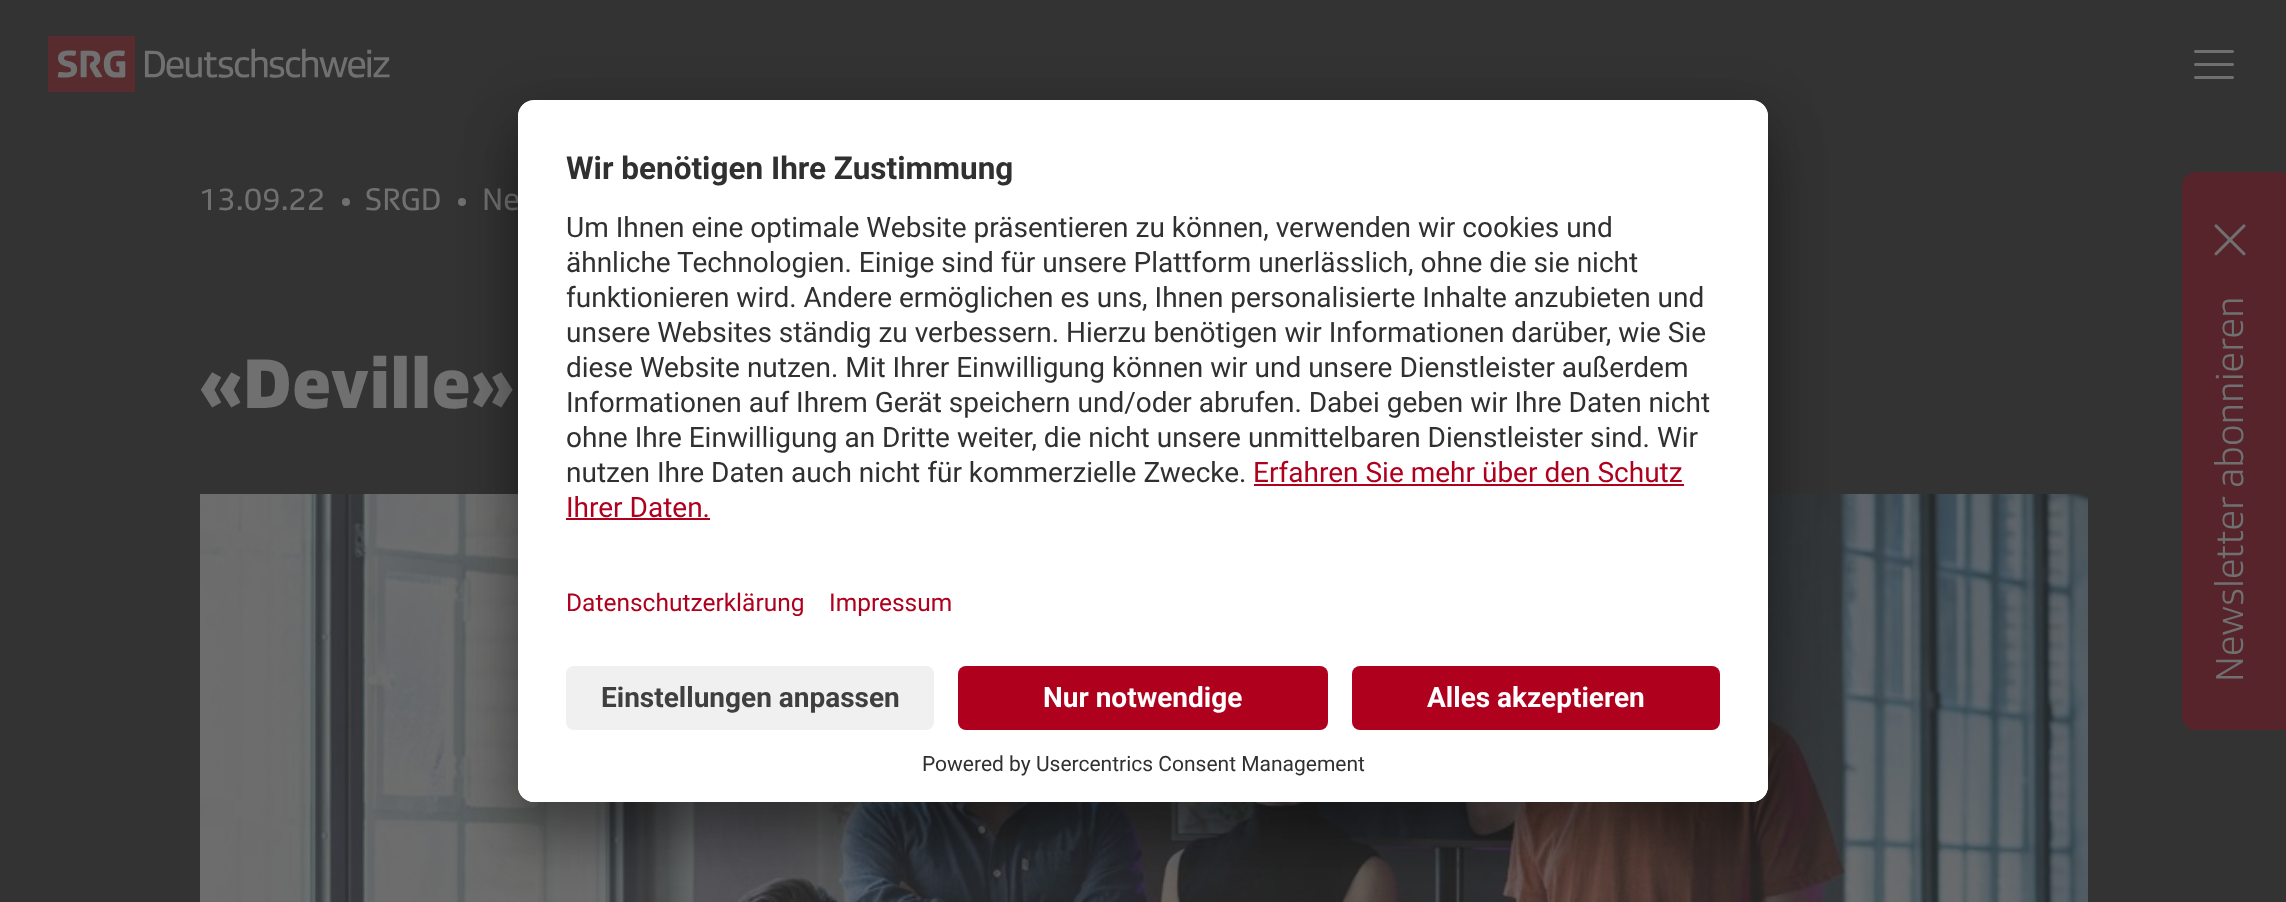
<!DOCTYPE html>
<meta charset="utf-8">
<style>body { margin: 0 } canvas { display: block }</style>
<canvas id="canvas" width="2286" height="902"></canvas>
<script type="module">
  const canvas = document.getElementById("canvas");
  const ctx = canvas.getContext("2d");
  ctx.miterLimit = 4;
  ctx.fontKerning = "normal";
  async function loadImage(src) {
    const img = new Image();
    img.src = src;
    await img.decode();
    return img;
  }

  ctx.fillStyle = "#333333";
  ctx.fillRect(0, 0, 2286, 902);
  ctx.drawImage(await loadImage("img1.png"), 48, 36, 342, 56);
  ctx.drawImage(await loadImage("img2.png"), 2194, 50, 40, 29);
  ctx.font = "32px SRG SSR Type";
  ctx.fillStyle = "#707070";
  ctx.fillText("13.09.22", 199, 210);
  ctx.beginPath();
  ctx.arc(346, 202, 4, 0, Math.PI * 2);
  ctx.fill();
  ctx.fillText("SRGD", 365, 210);
  ctx.beginPath();
  ctx.arc(462, 202, 4, 0, Math.PI * 2);
  ctx.fill();
  ctx.fillText("Ne", 482, 210);
  ctx.font = "900 72px SRG SSR Type";
  ctx.fillText("«Deville»", 199, 408);
  ctx.drawImage(await loadImage("img3.png"), 200, 494, 1888, 408);
  ctx.fillStyle = "rgba(0, 0, 0, 0.3)";
  ctx.filter = "blur(28px)";
  ctx.beginPath();
  ctx.roundRect(518, 140, 1250, 702, 16);
  ctx.fill();
  ctx.filter = "none";
  ctx.fillStyle = "rgba(0, 0, 0, 0.22)";
  ctx.filter = "blur(26px)";
  ctx.beginPath();
  ctx.roundRect(518, 110, 1250, 702, 16);
  ctx.fill();
  ctx.filter = "none";
  ctx.fillStyle = "#ffffff";
  ctx.beginPath();
  ctx.roundRect(518, 100, 1250, 702, 16);
  ctx.fill();
  ctx.save();
  ctx.beginPath();
  ctx.roundRect(518, 100, 1250, 702, 16);
  ctx.clip();
  ctx.beginPath();
  ctx.roundRect(518, 100, 1250, 550, [16, 16, 0, 0]);
  ctx.clip();
  ctx.fillRect(518, 102, 1250, 548);
  ctx.restore();
  ctx.font = "bold 31.5px Roboto";
  ctx.fillStyle = "#303030";
  ctx.fillText("Wir benötigen Ihre Zustimmung", 566, 179);
  ctx.font = "28px Roboto";
  ctx.fillText("Um Ihnen eine optimale Website präsentieren zu können, verwenden wir cookies und", 566, 237);
  ctx.fillText("ähnliche Technologien. Einige sind für unsere Plattform unerlässlich, ohne die sie nicht", 566, 272);
  ctx.fillText("funktionieren wird. Andere ermöglichen es uns, Ihnen personalisierte Inhalte anzubieten und", 566, 307);
  ctx.fillText("unsere Websites ständig zu verbessern. Hierzu benötigen wir Informationen darüber, wie Sie", 566, 342);
  ctx.fillText("diese Website nutzen. Mit Ihrer Einwilligung können wir und unsere Dienstleister außerdem", 566, 377);
  ctx.fillText("Informationen auf Ihrem Gerät speichern und/oder abrufen. Dabei geben wir Ihre Daten nicht", 566, 412);
  ctx.fillText("ohne Ihre Einwilligung an Dritte weiter, die nicht unsere unmittelbaren Dienstleister sind. Wir", 566, 447);
  ctx.fillText("nutzen Ihre Daten auch nicht für kommerzielle Zwecke.", 566, 482);
  ctx.fillStyle = "#af001e";
  ctx.fillText("Erfahren Sie mehr über den Schutz", 1253, 482);
  ctx.fillRect(1254, 484, 430, 2);
  ctx.fillText("Ihrer Daten.", 566, 517);
  ctx.fillRect(566, 518, 144, 2);
  ctx.font = "24.5px Roboto";
  ctx.fillText("Datenschutzerklärung", 566, 611);
  ctx.fillText("Impressum", 829, 611);
  ctx.fillStyle = "#ffffff";
  ctx.beginPath();
  ctx.roundRect(518, 650, 1250, 152, [0, 0, 16, 16]);
  ctx.fill();
  ctx.fillStyle = "#f0f0f0";
  ctx.beginPath();
  ctx.roundRect(566, 666, 368, 64, 8);
  ctx.fill();
  ctx.font = "bold 28px Roboto";
  ctx.fillStyle = "#3f3f3f";
  ctx.fillText("Einstellungen anpassen", 601, 707);
  ctx.fillStyle = "#af001e";
  ctx.beginPath();
  ctx.roundRect(958, 666, 370, 64, 8);
  ctx.fill();
  ctx.fillStyle = "#ffffff";
  ctx.fillText("Nur notwendige", 1043, 707);
  ctx.fillStyle = "#af001e";
  ctx.beginPath();
  ctx.roundRect(1352, 666, 368, 64, 8);
  ctx.fill();
  ctx.fillStyle = "#ffffff";
  ctx.fillText("Alles akzeptieren", 1427, 707);
  ctx.font = "21px Roboto";
  ctx.fillStyle = "#303030";
  ctx.fillText("Powered by Usercentrics Consent Management", 922, 771);
  ctx.fillStyle = "#58242c";
  ctx.beginPath();
  ctx.moveTo(2180, 716);
  ctx.lineTo(2180, 186);
  ctx.bezierCurveTo(2180, 177, 2187, 170, 2196, 170);
  ctx.lineTo(2286, 170);
  ctx.lineTo(2286, 732);
  ctx.lineTo(2196, 732);
  ctx.bezierCurveTo(2187, 732, 2180, 725, 2180, 716);
  ctx.closePath();
  ctx.fill();
  ctx.fillStyle = "#333333";
  ctx.beginPath();
  ctx.moveTo(2180, 716);
  ctx.lineTo(2180, 186);
  ctx.bezierCurveTo(2180, 177, 2187, 170, 2196, 170);
  ctx.lineTo(2286, 170);
  ctx.lineTo(2286, 732);
  ctx.lineTo(2196, 732);
  ctx.bezierCurveTo(2187, 732, 2180, 725, 2180, 716);
  ctx.closePath();
  ctx.moveTo(2182, 716);
  ctx.lineTo(2182, 186);
  ctx.bezierCurveTo(2182, 178, 2188, 172, 2196, 172);
  ctx.lineTo(2286, 172);
  ctx.lineTo(2286, 730);
  ctx.lineTo(2196, 730);
  ctx.bezierCurveTo(2188, 730, 2182, 724, 2182, 716);
  ctx.closePath();
  ctx.fill("evenodd");
  ctx.drawImage(await loadImage("img4.png"), 2214, 224, 32, 32);
  ctx.font = "300 40px SRG SSR Type";
  ctx.fillStyle = "#707070";
  ctx.save();
  ctx.translate(2243, 682);
  ctx.rotate(-90 * Math.PI / 180);
  ctx.fillText("Newsletter abonnieren", 0, 0);
  ctx.restore();
</script>
